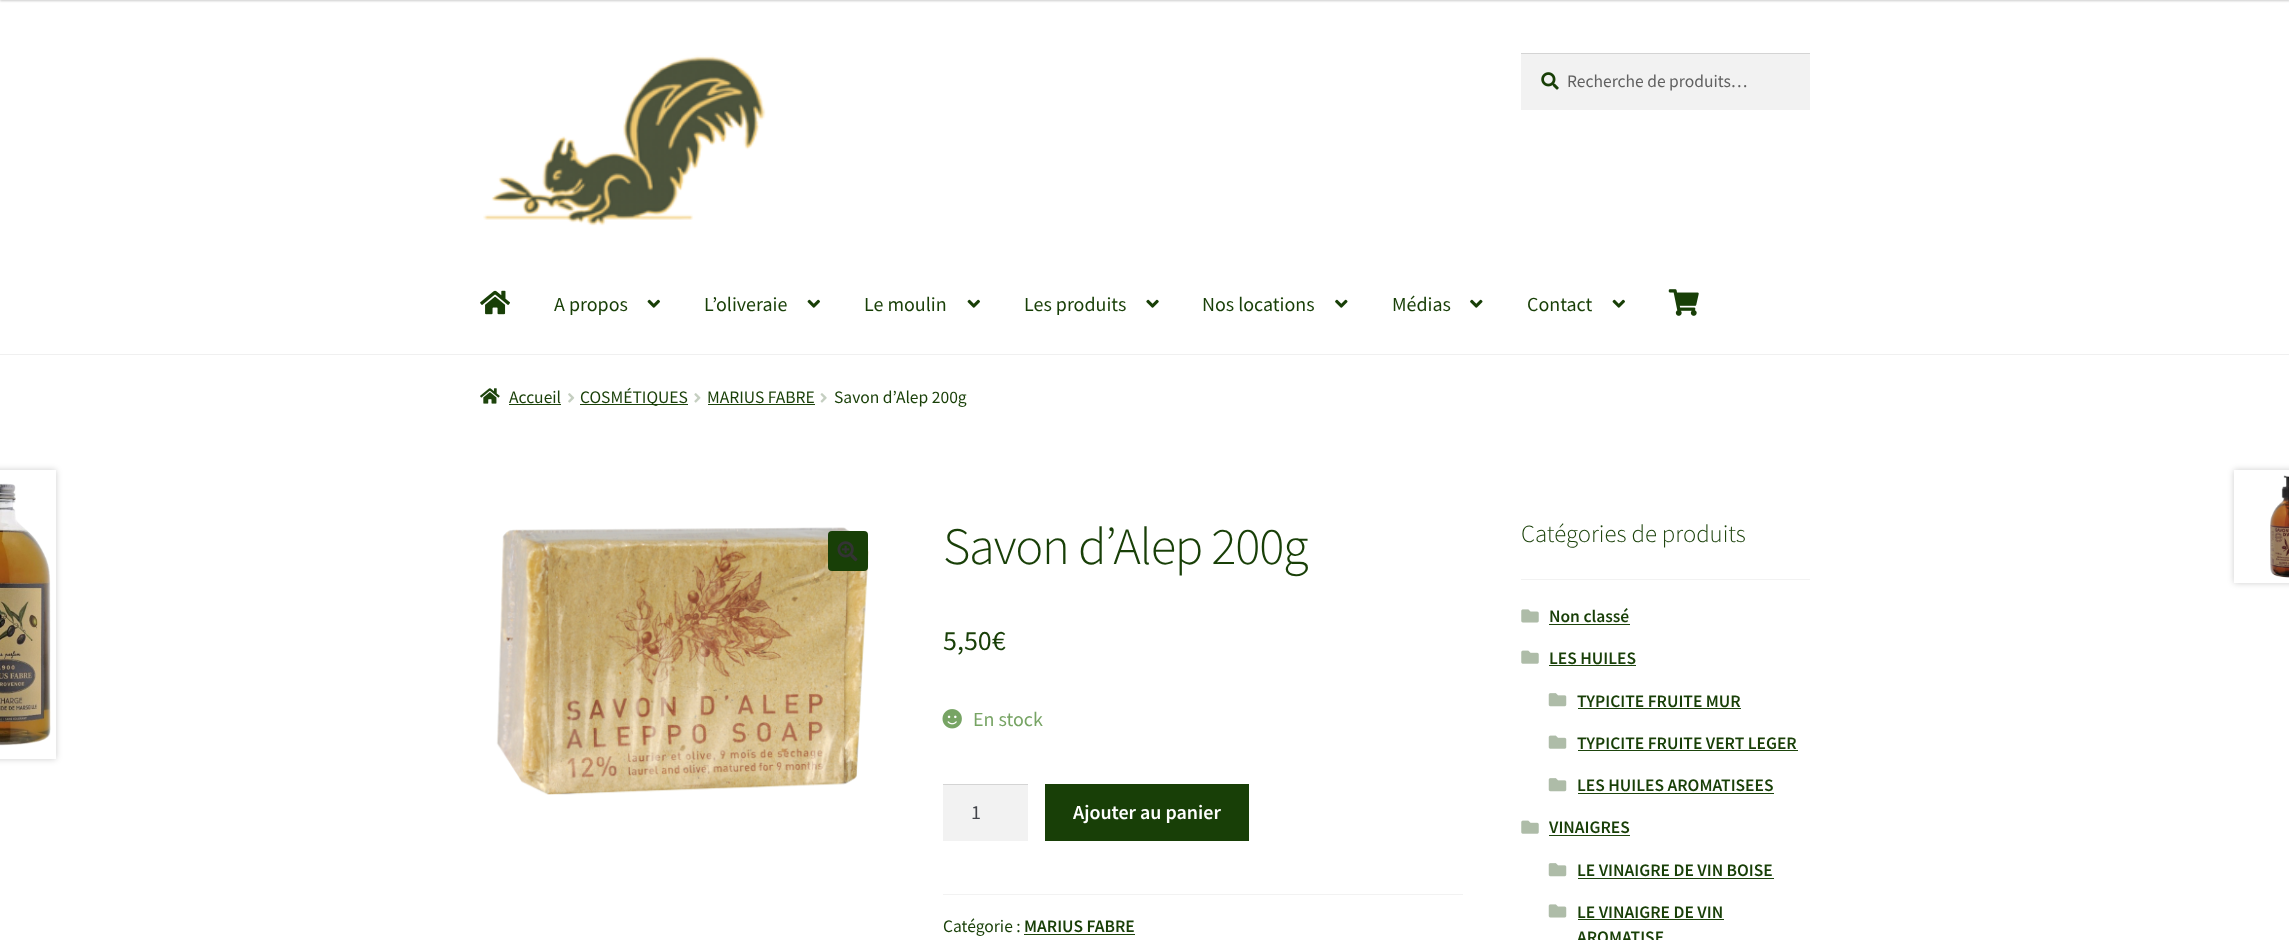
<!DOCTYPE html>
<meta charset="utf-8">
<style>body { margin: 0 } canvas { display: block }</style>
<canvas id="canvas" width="2289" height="940"></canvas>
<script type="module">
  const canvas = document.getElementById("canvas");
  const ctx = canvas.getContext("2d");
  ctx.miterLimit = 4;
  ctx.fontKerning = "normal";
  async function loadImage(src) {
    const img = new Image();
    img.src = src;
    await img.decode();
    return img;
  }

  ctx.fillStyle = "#ffffff";
  ctx.fillRect(0, 0, 2289, 940);
  ctx.fillStyle = "rgba(0, 0, 0, 0.2)";
  ctx.filter = "blur(1px)";
  ctx.beginPath();
  ctx.rect(0, -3, 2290, 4);
  ctx.fill();
  ctx.filter = "none";
  ctx.fillStyle = "#f0f0f0";
  ctx.fillRect(0, 354, 2289, 1);
  ctx.drawImage(await loadImage("img1.png"), 483, 55, 283, 171);
  ctx.fillStyle = "#f2f2f2";
  ctx.fillRect(1521, 54, 289, 56);
  ctx.drawImage(await loadImage("img2.png"), 1541, 72, 18, 18);
  ctx.fillStyle = "#d4d4d4";
  ctx.fillRect(1521, 53, 289, 1);
  ctx.font = "17.5px Source Sans Pro";
  ctx.fillStyle = "#616161";
  ctx.fillText("Recherche de produits…", 1567, 87);
  ctx.drawImage(await loadImage("img3.png"), 480, 290, 30, 25);
  ctx.font = "20px Source Sans Pro";
  ctx.fillStyle = "#183f07";
  ctx.fillText("A propos", 554, 311);
  ctx.drawImage(await loadImage("img4.png"), 647, 299, 13, 9);
  ctx.fillText("L’oliveraie", 704, 311);
  ctx.drawImage(await loadImage("img4.png"), 807, 299, 13, 9);
  ctx.fillText("Le moulin", 864, 311);
  ctx.drawImage(await loadImage("img4.png"), 967, 299, 13, 9);
  ctx.fillText("Les produits", 1024, 311);
  ctx.drawImage(await loadImage("img5.png"), 1146, 299, 13, 9);
  ctx.fillText("Nos locations", 1202, 311);
  ctx.drawImage(await loadImage("img6.png"), 1335, 299, 13, 9);
  ctx.fillText("Médias", 1392, 311);
  ctx.drawImage(await loadImage("img6.png"), 1470, 299, 13, 9);
  ctx.fillText("Contact", 1527, 311);
  ctx.drawImage(await loadImage("img4.png"), 1612, 299, 13, 9);
  ctx.drawImage(await loadImage("img7.png"), 1668, 289, 31, 27);
  ctx.drawImage(await loadImage("img8.png"), 480, 388, 20, 16);
  ctx.font = "17.5px Source Sans Pro";
  ctx.fillText("Accueil", 509, 403);
  ctx.fillStyle = "#1d440c";
  ctx.fillRect(509, 404, 52, 1);
  ctx.drawImage(await loadImage("img9.png"), 568, 393, 7, 10);
  ctx.fillRect(580, 404, 108, 1);
  ctx.fillStyle = "#183f07";
  ctx.fillText("COSMÉTIQUES", 580, 403);
  ctx.drawImage(await loadImage("img10.png"), 694, 393, 7, 10);
  ctx.fillText("MARIUS FABRE", 707, 403);
  ctx.fillStyle = "#1d440c";
  ctx.fillRect(708, 404, 107, 1);
  ctx.drawImage(await loadImage("img11.png"), 820, 393, 7, 10);
  ctx.fillStyle = "#183f07";
  ctx.fillText("Savon d’Alep 200g", 834, 403);
  ctx.fillStyle = "rgba(0, 0, 0, 0.2)";
  ctx.filter = "blur(3px)";
  ctx.beginPath();
  ctx.rect(-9, 470, 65, 289);
  ctx.fill();
  ctx.filter = "none";
  ctx.fillStyle = "#ffffff";
  ctx.fillRect(0, 470, 56, 289);
  ctx.drawImage(await loadImage("img12.png"), 0, 483, 51, 263);
  ctx.fillStyle = "rgba(0, 0, 0, 0.2)";
  ctx.filter = "blur(3px)";
  ctx.beginPath();
  ctx.rect(2234, 470, 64, 113);
  ctx.fill();
  ctx.filter = "none";
  ctx.fillStyle = "#ffffff";
  ctx.fillRect(2234, 470, 55, 113);
  ctx.drawImage(await loadImage("img13.png"), 2270, 475, 19, 103);
  ctx.drawImage(await loadImage("img14.png"), 496, 527, 373, 268);
  ctx.fillStyle = "#183f07";
  ctx.beginPath();
  ctx.roundRect(828, 531, 40, 40, 4);
  ctx.fill();
  ctx.drawImage(await loadImage("img15.png"), 837, 541, 21, 21);
  ctx.letterSpacing = "-1.25px";
  ctx.font = "300 52.5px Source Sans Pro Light";
  ctx.fillText("Savon d’Alep 200g", 943, 564);
  ctx.letterSpacing = "0px";
  ctx.font = "28px Source Sans Pro";
  ctx.fillText("5,50€", 943, 650);
  ctx.drawImage(await loadImage("img16.png"), 942, 709, 20, 20);
  ctx.font = "20px Source Sans Pro";
  ctx.fillStyle = "#77a464";
  ctx.fillText("En stock", 973, 726);
  ctx.fillStyle = "#f2f2f2";
  ctx.fillRect(943, 785, 85, 56);
  ctx.fillStyle = "#d4d4d4";
  ctx.fillRect(943, 784, 85, 1);
  ctx.fillStyle = "#43454b";
  ctx.fillText("1", 971, 819);
  ctx.fillStyle = "#183f07";
  ctx.fillRect(1045, 784, 204, 57);
  ctx.font = "600 20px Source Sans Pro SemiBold";
  ctx.fillStyle = "#ffffff";
  ctx.fillText("Ajouter au panier", 1073, 819);
  ctx.fillStyle = "#f2f2f2";
  ctx.fillRect(943, 894, 520, 1);
  ctx.font = "17.5px Source Sans Pro";
  ctx.fillStyle = "#183f07";
  ctx.fillText("Catégorie :", 943, 932);
  ctx.font = "600 17.5px Source Sans Pro SemiBold";
  ctx.fillText("MARIUS FABRE", 1024, 932);
  ctx.fillStyle = "#1d440c";
  ctx.fillRect(1024, 934, 111, 1);
  ctx.fillStyle = "#f2f2f2";
  ctx.fillRect(1521, 579, 289, 1);
  ctx.font = "300 24.75px Source Sans Pro Light";
  ctx.fillStyle = "#183f07";
  ctx.fillText("Catégories de produits", 1521, 542);
  ctx.drawImage(await loadImage("img17.png"), 1521, 609, 18, 14);
  ctx.font = "600 17.5px Source Sans Pro SemiBold";
  ctx.fillText("Non classé", 1549, 622);
  ctx.fillStyle = "#1d440c";
  ctx.fillRect(1549, 624, 81, 1);
  ctx.drawImage(await loadImage("img18.png"), 1521, 650, 18, 14);
  ctx.fillStyle = "#183f07";
  ctx.fillText("LES HUILES", 1549, 664);
  ctx.fillStyle = "#1d440c";
  ctx.fillRect(1549, 665, 87, 1);
  ctx.drawImage(await loadImage("img19.png"), 1548, 693, 19, 14);
  ctx.fillStyle = "#183f07";
  ctx.fillText("TYPICITE FRUITE MUR", 1577, 707);
  ctx.fillStyle = "#1d440c";
  ctx.fillRect(1578, 708, 163, 1);
  ctx.drawImage(await loadImage("img20.png"), 1548, 735, 19, 14);
  ctx.fillStyle = "#183f07";
  ctx.fillText("TYPICITE FRUITE VERT LEGER", 1577, 749);
  ctx.fillStyle = "#1d440c";
  ctx.fillRect(1578, 750, 220, 1);
  ctx.drawImage(await loadImage("img19.png"), 1548, 778, 19, 14);
  ctx.fillStyle = "#183f07";
  ctx.fillText("LES HUILES AROMATISEES", 1577, 791);
  ctx.fillStyle = "#1d440c";
  ctx.fillRect(1578, 793, 196, 1);
  ctx.drawImage(await loadImage("img18.png"), 1521, 820, 18, 14);
  ctx.fillStyle = "#183f07";
  ctx.fillText("VINAIGRES", 1549, 833);
  ctx.fillStyle = "#1d440c";
  ctx.fillRect(1549, 835, 81, 1);
  ctx.drawImage(await loadImage("img19.png"), 1548, 863, 19, 14);
  ctx.fillStyle = "#183f07";
  ctx.fillText("LE VINAIGRE DE VIN BOISE", 1577, 876);
  ctx.fillStyle = "#1d440c";
  ctx.fillRect(1578, 878, 196, 1);
  ctx.drawImage(await loadImage("img21.png"), 1548, 904, 19, 14);
  ctx.fillStyle = "#183f07";
  ctx.fillText("LE VINAIGRE DE VIN", 1577, 918);
  ctx.fillStyle = "#1d440c";
  ctx.fillRect(1578, 919, 146, 1);
  ctx.fillStyle = "#183f07";
  ctx.fillText("AROMATISE", 1577, 943);
</script>
